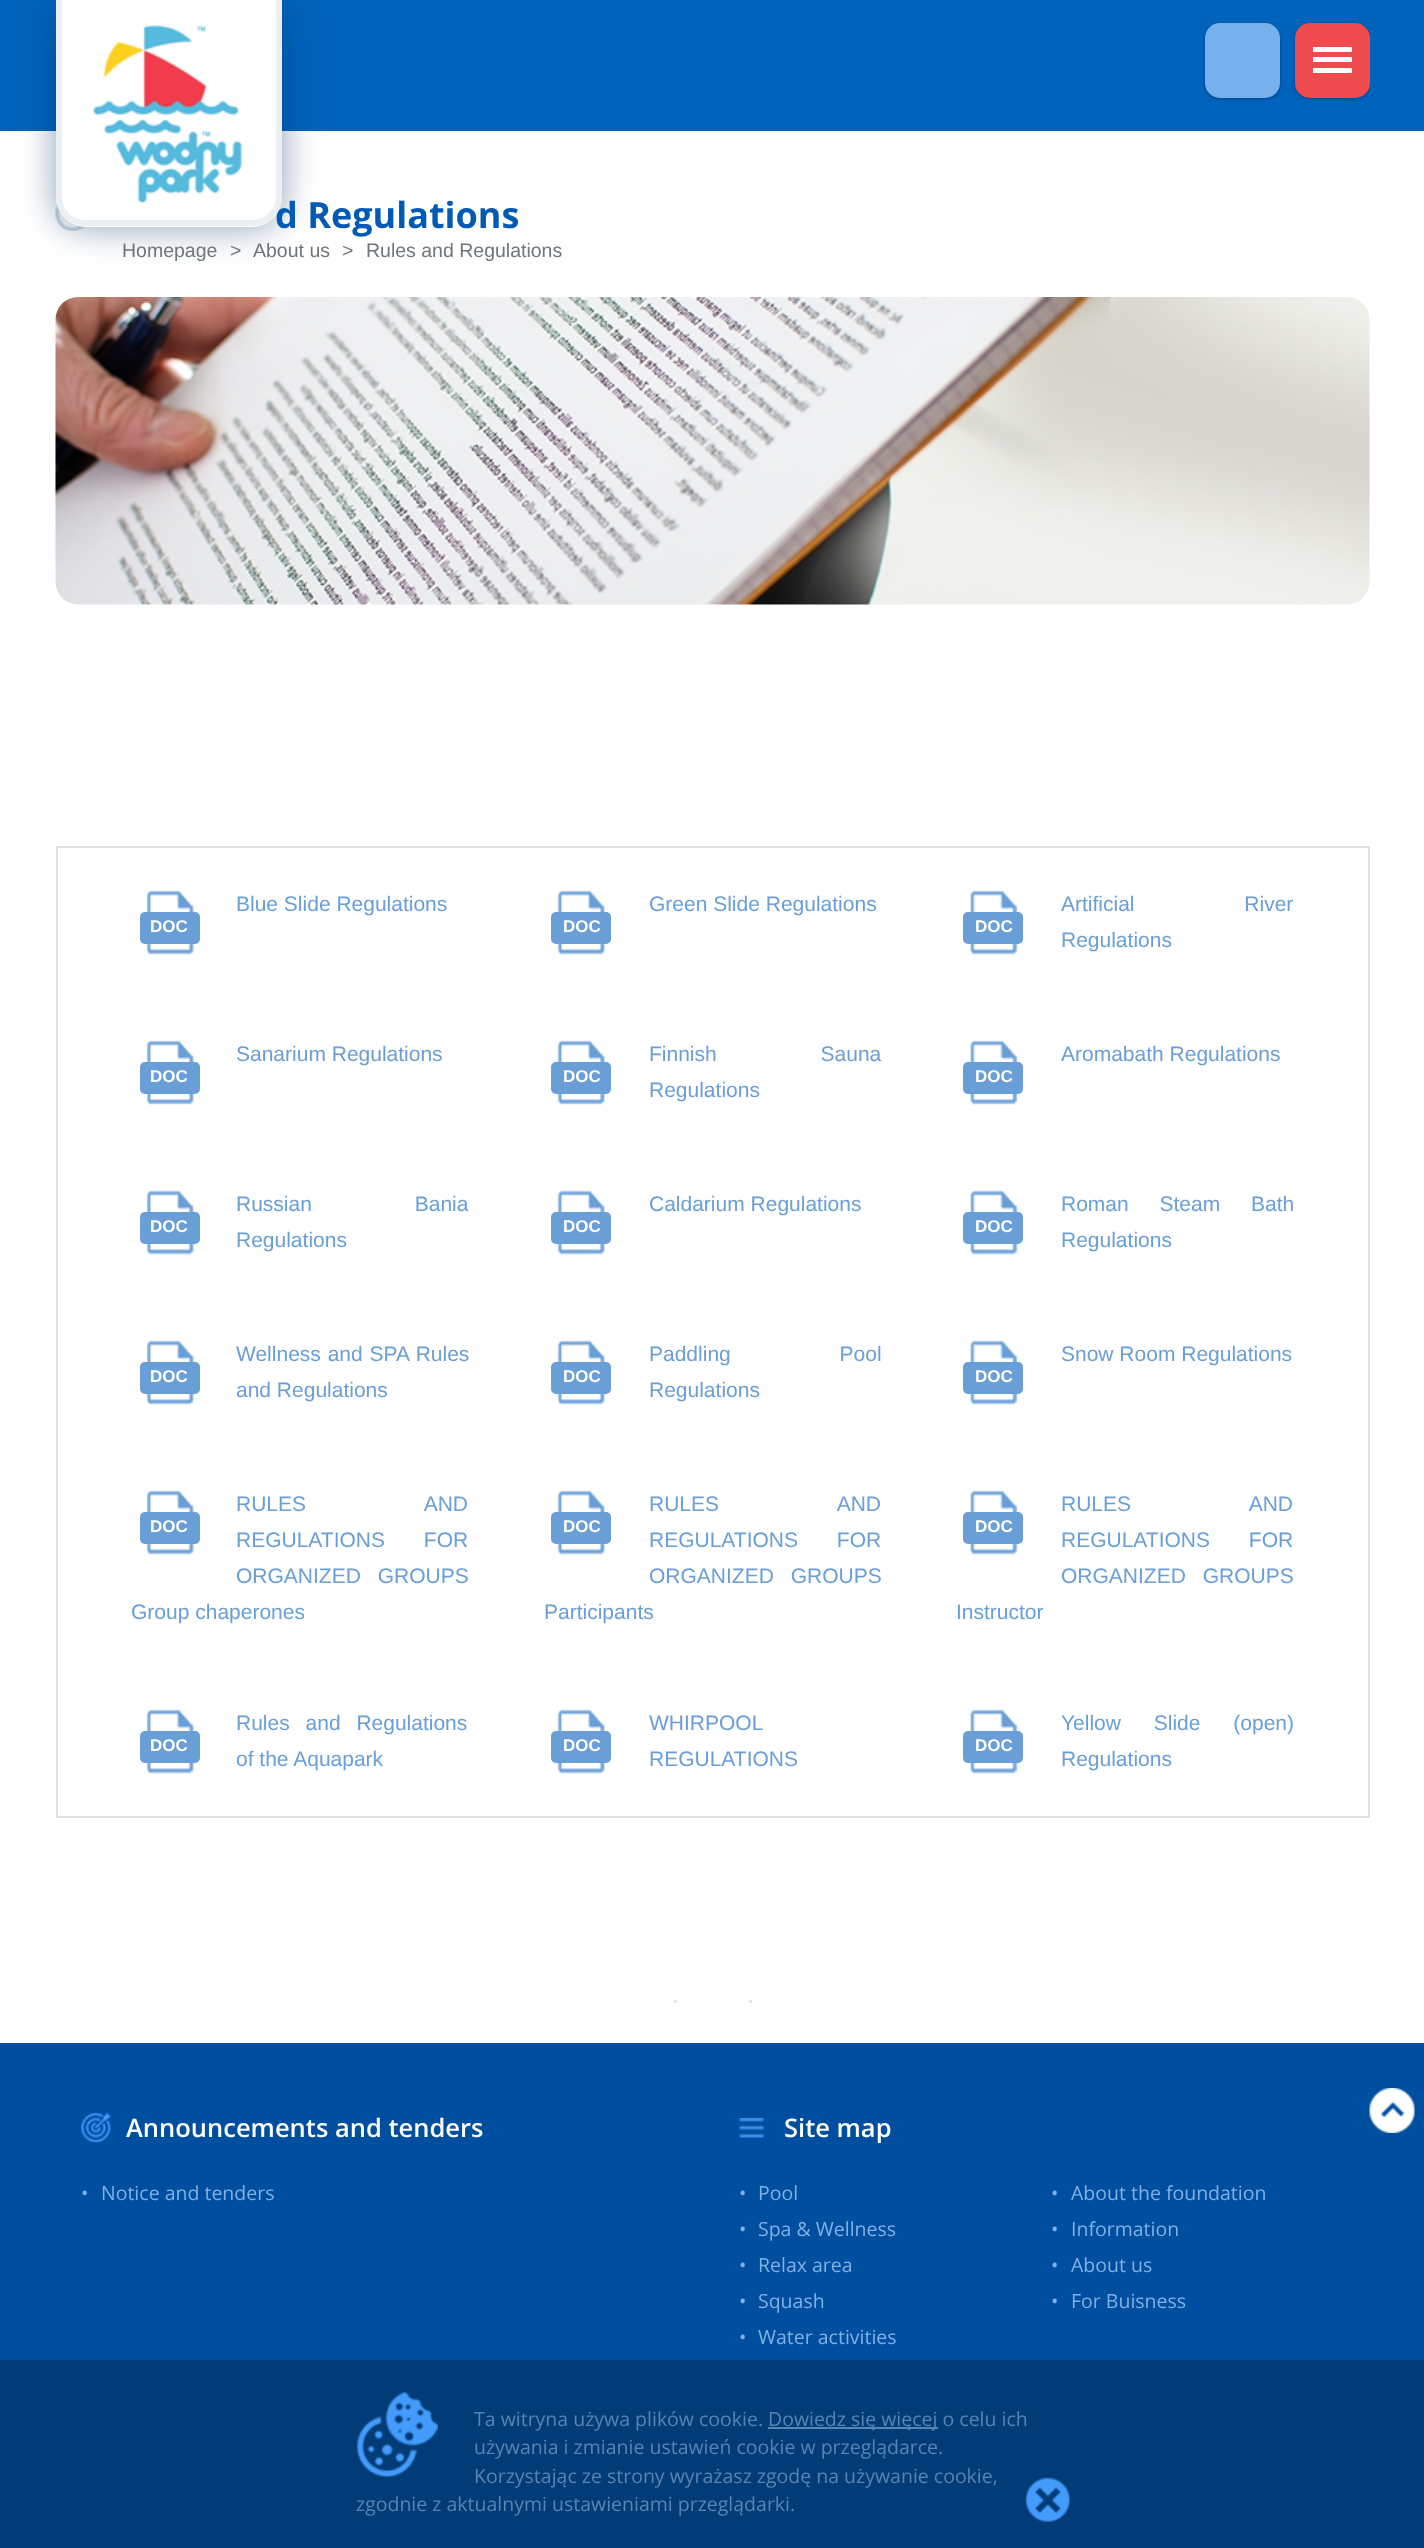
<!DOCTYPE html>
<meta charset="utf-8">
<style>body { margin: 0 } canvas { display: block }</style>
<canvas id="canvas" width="1424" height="2548"></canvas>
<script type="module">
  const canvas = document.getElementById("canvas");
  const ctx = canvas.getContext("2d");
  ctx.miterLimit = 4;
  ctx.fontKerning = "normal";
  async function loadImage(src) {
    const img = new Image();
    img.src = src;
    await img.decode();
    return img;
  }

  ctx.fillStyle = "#ffffff";
  ctx.fillRect(0, 0, 1424, 2548);
  ctx.fillStyle = "#0063bb";
  ctx.fillRect(0, 0, 1424, 131);
  ctx.fillStyle = "rgba(4, 58, 122, 0.84)";
  ctx.filter = "blur(1.5px)";
  ctx.beginPath();
  ctx.roundRect(1205, 24, 75, 75, 15);
  ctx.fill();
  ctx.filter = "none";
  ctx.fillStyle = "#77b1ed";
  ctx.beginPath();
  ctx.roundRect(1205, 23, 75, 75, 15);
  ctx.fill();
  ctx.save();
  ctx.beginPath();
  ctx.rect(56, 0, 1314, 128);
  ctx.clip();
  ctx.fillStyle = "rgba(4, 58, 122, 0.84)";
  ctx.filter = "blur(1.5px)";
  ctx.beginPath();
  ctx.roundRect(1295, 24, 75, 75, 15);
  ctx.fill();
  ctx.filter = "none";
  ctx.restore();
  ctx.fillStyle = "#ef4a4d";
  ctx.beginPath();
  ctx.roundRect(1295, 23, 75, 75, 15);
  ctx.fill();
  ctx.fillStyle = "#ffffff";
  ctx.fillRect(1313, 47, 39, 5);
  ctx.fillRect(1313, 57, 39, 5);
  ctx.fillRect(1313, 68, 39, 5);
  ctx.drawImage(await loadImage("img2.png"), 55, 204, 31, 27);
  ctx.fillStyle = "rgba(10, 54, 99, 0.48)";
  ctx.filter = "blur(18px)";
  ctx.beginPath();
  ctx.roundRect(56, 0, 226, 227, 30);
  ctx.fill();
  ctx.filter = "none";
  ctx.font = "bold 36px Open Sans";
  ctx.fillStyle = "#005ab6";
  ctx.fillText("d Regulations", 275, 228);
  ctx.fillStyle = "#ffffff";
  ctx.beginPath();
  ctx.roundRect(56, 0, 226, 227, [0, 0, 30, 30]);
  ctx.fill();
  ctx.fillStyle = "#ecf0f3";
  ctx.beginPath();
  ctx.moveTo(56, 0);
  ctx.lineTo(282, 0);
  ctx.lineTo(282, 196);
  ctx.bezierCurveTo(282, 213, 269, 226, 252, 226);
  ctx.lineTo(86, 226);
  ctx.bezierCurveTo(69, 226, 56, 213, 56, 196);
  ctx.closePath();
  ctx.moveTo(62, 0);
  ctx.lineTo(276, 0);
  ctx.lineTo(276, 196);
  ctx.bezierCurveTo(276, 210, 265, 220, 252, 220);
  ctx.lineTo(86, 220);
  ctx.bezierCurveTo(72, 220, 62, 210, 62, 196);
  ctx.closePath();
  ctx.fill("evenodd");
  ctx.drawImage(await loadImage("img1.png"), 92, 25, 150, 178);
  ctx.font = "19.5px Liberation Sans";
  ctx.fillStyle = "#6f757a";
  ctx.fillText("Homepage", 122, 257);
  ctx.fillText(">", 230, 257);
  ctx.fillText("About us", 253, 257);
  ctx.fillText(">", 342, 257);
  ctx.fillText("Rules and Regulations", 366, 257);
  ctx.drawImage(await loadImage("img3.png"), 55, 297, 1315, 308);
  ctx.strokeStyle = "#e0e0e0";
  ctx.lineWidth = 2;
  ctx.strokeRect(57, 847, 1312, 970);
  ctx.font = "21px Liberation Sans";
  ctx.fillStyle = "#699ed7";
  ctx.fillText("Blue Slide Regulations", 236, 911);
  ctx.drawImage(await loadImage("img4.png"), 146, 890, 48, 65);
  ctx.beginPath();
  ctx.roundRect(140, 912, 60, 32, 5);
  ctx.fill();
  ctx.font = "bold 17px Liberation Sans";
  ctx.fillStyle = "#ffffff";
  ctx.fillText("DOC", 150, 932);
  ctx.font = "21px Liberation Sans";
  ctx.fillStyle = "#699ed7";
  ctx.fillText("Green Slide Regulations", 649, 911);
  ctx.drawImage(await loadImage("img4.png"), 557, 890, 48, 65);
  ctx.beginPath();
  ctx.roundRect(551, 912, 60, 32, 5);
  ctx.fill();
  ctx.font = "bold 17px Liberation Sans";
  ctx.fillStyle = "#ffffff";
  ctx.fillText("DOC", 563, 932);
  ctx.wordSpacing = "104px";
  ctx.font = "21px Liberation Sans";
  ctx.fillStyle = "#699ed7";
  ctx.fillText("Artificial River", 1061, 911);
  ctx.drawImage(await loadImage("img5.png"), 970, 890, 48, 65);
  ctx.beginPath();
  ctx.roundRect(963, 912, 60, 32, 5);
  ctx.fill();
  ctx.wordSpacing = "0px";
  ctx.font = "bold 17px Liberation Sans";
  ctx.fillStyle = "#ffffff";
  ctx.fillText("DOC", 975, 932);
  ctx.font = "21px Liberation Sans";
  ctx.fillStyle = "#699ed7";
  ctx.fillText("Regulations", 1061, 947);
  ctx.fillText("Sanarium Regulations", 236, 1061);
  ctx.drawImage(await loadImage("img4.png"), 146, 1040, 48, 65);
  ctx.beginPath();
  ctx.roundRect(140, 1062, 60, 32, 5);
  ctx.fill();
  ctx.font = "bold 17px Liberation Sans";
  ctx.fillStyle = "#ffffff";
  ctx.fillText("DOC", 150, 1082);
  ctx.wordSpacing = "98px";
  ctx.font = "21px Liberation Sans";
  ctx.fillStyle = "#699ed7";
  ctx.fillText("Finnish Sauna", 649, 1061);
  ctx.drawImage(await loadImage("img4.png"), 557, 1040, 48, 65);
  ctx.beginPath();
  ctx.roundRect(551, 1062, 60, 32, 5);
  ctx.fill();
  ctx.wordSpacing = "0px";
  ctx.font = "bold 17px Liberation Sans";
  ctx.fillStyle = "#ffffff";
  ctx.fillText("DOC", 563, 1082);
  ctx.font = "21px Liberation Sans";
  ctx.fillStyle = "#699ed7";
  ctx.fillText("Regulations", 649, 1097);
  ctx.fillText("Aromabath Regulations", 1061, 1061);
  ctx.drawImage(await loadImage("img5.png"), 970, 1040, 48, 65);
  ctx.beginPath();
  ctx.roundRect(963, 1062, 60, 32, 5);
  ctx.fill();
  ctx.font = "bold 17px Liberation Sans";
  ctx.fillStyle = "#ffffff";
  ctx.fillText("DOC", 975, 1082);
  ctx.wordSpacing = "97px";
  ctx.font = "21px Liberation Sans";
  ctx.fillStyle = "#699ed7";
  ctx.fillText("Russian Bania", 236, 1211);
  ctx.drawImage(await loadImage("img4.png"), 146, 1190, 48, 65);
  ctx.beginPath();
  ctx.roundRect(140, 1212, 60, 32, 5);
  ctx.fill();
  ctx.wordSpacing = "0px";
  ctx.font = "bold 17px Liberation Sans";
  ctx.fillStyle = "#ffffff";
  ctx.fillText("DOC", 150, 1232);
  ctx.font = "21px Liberation Sans";
  ctx.fillStyle = "#699ed7";
  ctx.fillText("Regulations", 236, 1247);
  ctx.fillText("Caldarium Regulations", 649, 1211);
  ctx.drawImage(await loadImage("img4.png"), 557, 1190, 48, 65);
  ctx.beginPath();
  ctx.roundRect(551, 1212, 60, 32, 5);
  ctx.fill();
  ctx.font = "bold 17px Liberation Sans";
  ctx.fillStyle = "#ffffff";
  ctx.fillText("DOC", 563, 1232);
  ctx.wordSpacing = "25px";
  ctx.font = "21px Liberation Sans";
  ctx.fillStyle = "#699ed7";
  ctx.fillText("Roman Steam Bath", 1061, 1211);
  ctx.drawImage(await loadImage("img5.png"), 970, 1190, 48, 65);
  ctx.beginPath();
  ctx.roundRect(963, 1212, 60, 32, 5);
  ctx.fill();
  ctx.wordSpacing = "0px";
  ctx.font = "bold 17px Liberation Sans";
  ctx.fillStyle = "#ffffff";
  ctx.fillText("DOC", 975, 1232);
  ctx.font = "21px Liberation Sans";
  ctx.fillStyle = "#699ed7";
  ctx.fillText("Regulations", 1061, 1247);
  ctx.wordSpacing = "1px";
  ctx.fillText("Wellness and SPA Rules", 236, 1361);
  ctx.drawImage(await loadImage("img4.png"), 146, 1340, 48, 65);
  ctx.beginPath();
  ctx.roundRect(140, 1362, 60, 32, 5);
  ctx.fill();
  ctx.wordSpacing = "0px";
  ctx.font = "bold 17px Liberation Sans";
  ctx.fillStyle = "#ffffff";
  ctx.fillText("DOC", 150, 1382);
  ctx.font = "21px Liberation Sans";
  ctx.fillStyle = "#699ed7";
  ctx.fillText("and Regulations", 236, 1397);
  ctx.wordSpacing = "103px";
  ctx.fillText("Paddling Pool", 649, 1361);
  ctx.drawImage(await loadImage("img4.png"), 557, 1340, 48, 65);
  ctx.beginPath();
  ctx.roundRect(551, 1362, 60, 32, 5);
  ctx.fill();
  ctx.wordSpacing = "0px";
  ctx.font = "bold 17px Liberation Sans";
  ctx.fillStyle = "#ffffff";
  ctx.fillText("DOC", 563, 1382);
  ctx.font = "21px Liberation Sans";
  ctx.fillStyle = "#699ed7";
  ctx.fillText("Regulations", 649, 1397);
  ctx.fillText("Snow Room Regulations", 1061, 1361);
  ctx.drawImage(await loadImage("img5.png"), 970, 1340, 48, 65);
  ctx.beginPath();
  ctx.roundRect(963, 1362, 60, 32, 5);
  ctx.fill();
  ctx.font = "bold 17px Liberation Sans";
  ctx.fillStyle = "#ffffff";
  ctx.fillText("DOC", 975, 1382);
  ctx.wordSpacing = "113px";
  ctx.font = "21px Liberation Sans";
  ctx.fillStyle = "#699ed7";
  ctx.fillText("RULES AND", 236, 1511);
  ctx.drawImage(await loadImage("img4.png"), 146, 1490, 48, 65);
  ctx.beginPath();
  ctx.roundRect(140, 1512, 60, 32, 5);
  ctx.fill();
  ctx.wordSpacing = "0px";
  ctx.font = "bold 17px Liberation Sans";
  ctx.fillStyle = "#ffffff";
  ctx.fillText("DOC", 150, 1532);
  ctx.wordSpacing = "33px";
  ctx.font = "21px Liberation Sans";
  ctx.fillStyle = "#699ed7";
  ctx.fillText("REGULATIONS FOR", 236, 1547);
  ctx.wordSpacing = "11px";
  ctx.fillText("ORGANIZED GROUPS", 236, 1583);
  ctx.wordSpacing = "0px";
  ctx.fillText("Group chaperones", 131, 1619);
  ctx.wordSpacing = "113px";
  ctx.fillText("RULES AND", 649, 1511);
  ctx.drawImage(await loadImage("img4.png"), 557, 1490, 48, 65);
  ctx.beginPath();
  ctx.roundRect(551, 1512, 60, 32, 5);
  ctx.fill();
  ctx.wordSpacing = "0px";
  ctx.font = "bold 17px Liberation Sans";
  ctx.fillStyle = "#ffffff";
  ctx.fillText("DOC", 563, 1532);
  ctx.wordSpacing = "33px";
  ctx.font = "21px Liberation Sans";
  ctx.fillStyle = "#699ed7";
  ctx.fillText("REGULATIONS FOR", 649, 1547);
  ctx.wordSpacing = "11px";
  ctx.fillText("ORGANIZED GROUPS", 649, 1583);
  ctx.wordSpacing = "0px";
  ctx.fillText("Participants", 544, 1619);
  ctx.wordSpacing = "113px";
  ctx.fillText("RULES AND", 1061, 1511);
  ctx.drawImage(await loadImage("img5.png"), 970, 1490, 48, 65);
  ctx.beginPath();
  ctx.roundRect(963, 1512, 60, 32, 5);
  ctx.fill();
  ctx.wordSpacing = "0px";
  ctx.font = "bold 17px Liberation Sans";
  ctx.fillStyle = "#ffffff";
  ctx.fillText("DOC", 975, 1532);
  ctx.wordSpacing = "33px";
  ctx.font = "21px Liberation Sans";
  ctx.fillStyle = "#699ed7";
  ctx.fillText("REGULATIONS FOR", 1061, 1547);
  ctx.wordSpacing = "11px";
  ctx.fillText("ORGANIZED GROUPS", 1061, 1583);
  ctx.wordSpacing = "0px";
  ctx.fillText("Instructor", 956, 1619);
  ctx.wordSpacing = "10px";
  ctx.fillText("Rules and Regulations", 236, 1730);
  ctx.drawImage(await loadImage("img4.png"), 146, 1709, 48, 65);
  ctx.beginPath();
  ctx.roundRect(140, 1731, 60, 32, 5);
  ctx.fill();
  ctx.wordSpacing = "0px";
  ctx.font = "bold 17px Liberation Sans";
  ctx.fillStyle = "#ffffff";
  ctx.fillText("DOC", 150, 1751);
  ctx.font = "21px Liberation Sans";
  ctx.fillStyle = "#699ed7";
  ctx.fillText("of the Aquapark", 236, 1766);
  ctx.fillText("WHIRPOOL", 649, 1730);
  ctx.drawImage(await loadImage("img4.png"), 557, 1709, 48, 65);
  ctx.beginPath();
  ctx.roundRect(551, 1731, 60, 32, 5);
  ctx.fill();
  ctx.font = "bold 17px Liberation Sans";
  ctx.fillStyle = "#ffffff";
  ctx.fillText("DOC", 563, 1751);
  ctx.font = "21px Liberation Sans";
  ctx.fillStyle = "#699ed7";
  ctx.fillText("REGULATIONS", 649, 1766);
  ctx.wordSpacing = "27px";
  ctx.fillText("Yellow Slide (open)", 1061, 1730);
  ctx.drawImage(await loadImage("img5.png"), 970, 1709, 48, 65);
  ctx.beginPath();
  ctx.roundRect(963, 1731, 60, 32, 5);
  ctx.fill();
  ctx.wordSpacing = "0px";
  ctx.font = "bold 17px Liberation Sans";
  ctx.fillStyle = "#ffffff";
  ctx.fillText("DOC", 975, 1751);
  ctx.font = "21px Liberation Sans";
  ctx.fillStyle = "#699ed7";
  ctx.fillText("Regulations", 1061, 1766);
  ctx.fillStyle = "#e6e6e6";
  ctx.fillRect(674, 2000, 3, 3);
  ctx.fillRect(749, 2000, 3, 3);
  ctx.fillStyle = "#004e9f";
  ctx.fillRect(0, 2043, 1424, 317);
  ctx.drawImage(await loadImage("img6.png"), 1369, 2088, 46, 45);
  ctx.drawImage(await loadImage("img7.png"), 81, 2112, 30, 30);
  ctx.font = "600 25.5px Open Sans";
  ctx.fillStyle = "#ffffff";
  ctx.fillText("Announcements and tenders", 126, 2137);
  ctx.font = "19.5px Open Sans";
  ctx.fillStyle = "#7fb2e4";
  ctx.fillText("•", 81, 2200);
  ctx.fillText("Notice and tenders", 101, 2200);
  ctx.drawImage(await loadImage("img8.png"), 739, 2118, 25, 20);
  ctx.font = "600 25.5px Open Sans";
  ctx.fillStyle = "#ffffff";
  ctx.fillText("Site map", 784, 2137);
  ctx.font = "19.5px Open Sans";
  ctx.fillStyle = "#7fb2e4";
  ctx.fillText("•", 739, 2200);
  ctx.fillText("Pool", 758, 2200);
  ctx.fillText("•", 1051, 2200);
  ctx.fillText("About the foundation", 1071, 2200);
  ctx.fillText("•", 739, 2236);
  ctx.fillText("Spa & Wellness", 758, 2236);
  ctx.fillText("•", 1051, 2236);
  ctx.fillText("Information", 1071, 2236);
  ctx.fillText("•", 739, 2272);
  ctx.fillText("Relax area", 758, 2272);
  ctx.fillText("•", 1051, 2272);
  ctx.fillText("About us", 1071, 2272);
  ctx.fillText("•", 739, 2308);
  ctx.fillText("Squash", 758, 2308);
  ctx.fillText("•", 1051, 2308);
  ctx.fillText("For Buisness", 1071, 2308);
  ctx.fillText("•", 739, 2344);
  ctx.fillText("Water activities", 758, 2344);
  ctx.fillStyle = "#023c77";
  ctx.fillRect(0, 2360, 1424, 188);
  ctx.drawImage(await loadImage("img9.png"), 356, 2392, 82, 85);
  ctx.fillStyle = "#5684b3";
  ctx.fillText("Ta witryna używa plików cookie.", 474, 2426);
  ctx.fillRect(768, 2427, 170, 2);
  ctx.fillText("Dowiedz się więcej o celu ich", 768, 2426);
  ctx.fillText("używania i zmianie ustawień cookie w przeglądarce.", 474, 2454);
  ctx.fillText("Korzystając ze strony wyrażasz zgodę na używanie cookie,", 474, 2483);
  ctx.drawImage(await loadImage("img10.png"), 1025, 2477, 45, 45);
  ctx.fillText("zgodnie z aktualnymi ustawieniami przeglądarki.", 356, 2511);
</script>
